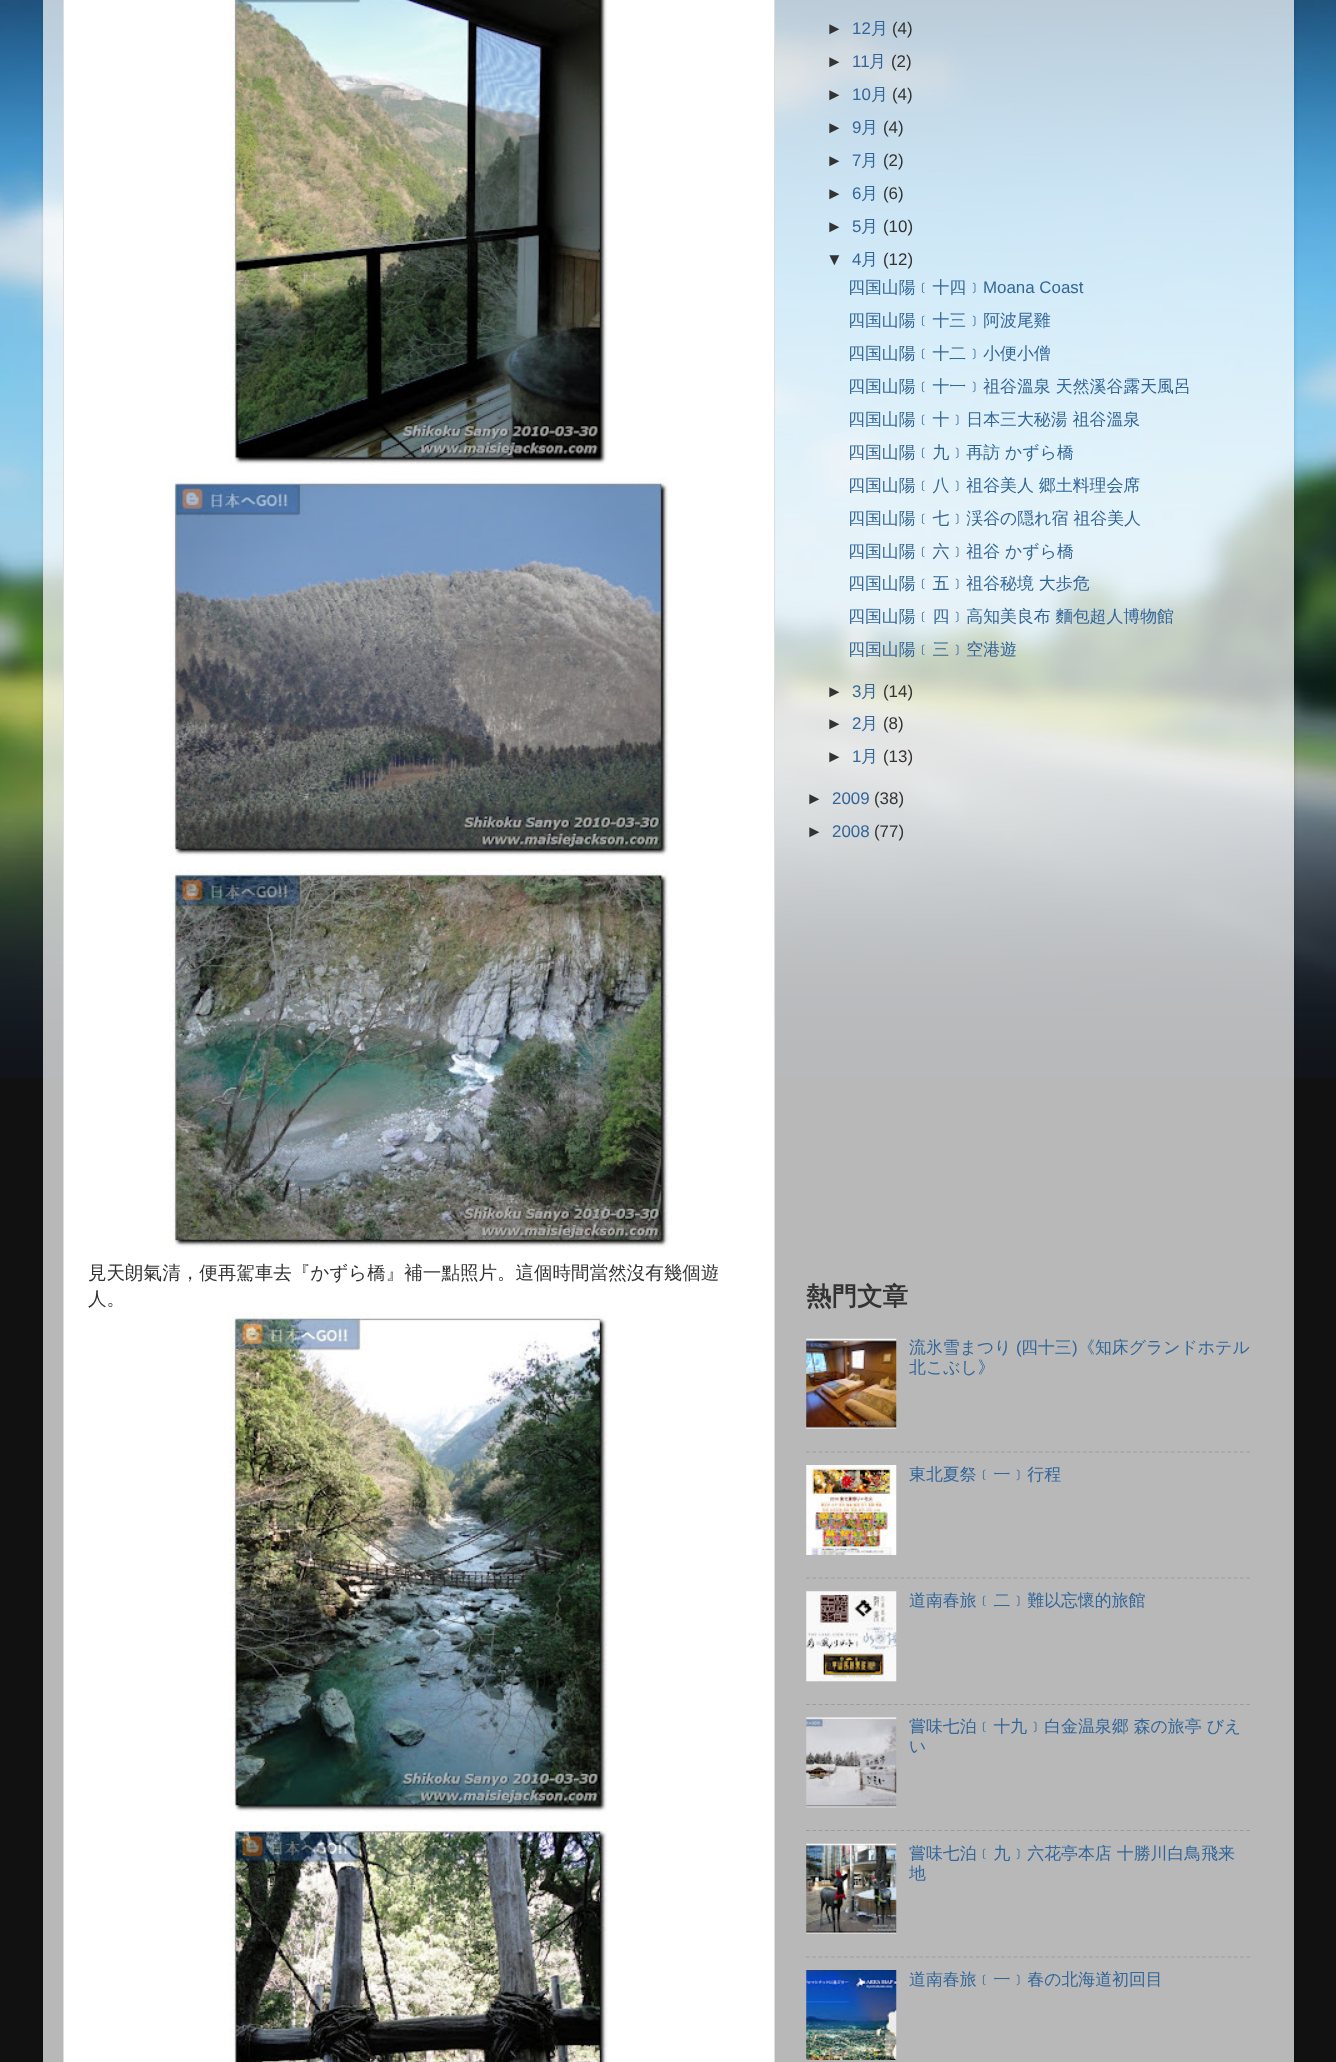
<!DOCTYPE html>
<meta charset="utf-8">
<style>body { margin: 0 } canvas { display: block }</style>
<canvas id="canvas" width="1336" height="2062"></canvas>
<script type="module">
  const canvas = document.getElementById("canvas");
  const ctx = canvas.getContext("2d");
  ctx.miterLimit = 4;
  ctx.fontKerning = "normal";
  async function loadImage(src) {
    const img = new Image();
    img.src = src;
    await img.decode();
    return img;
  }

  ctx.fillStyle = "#111111";
  ctx.fillRect(0, 0, 1336, 2062);
  ctx.drawImage(await loadImage("img1.png"), 0, 0, 1336, 1078);
  ctx.save();
  ctx.beginPath();
  ctx.moveTo(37, 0);
  ctx.lineTo(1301, 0);
  ctx.lineTo(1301, 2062);
  ctx.lineTo(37, 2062);
  ctx.closePath();
  ctx.moveTo(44, -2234);
  ctx.lineTo(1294, -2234);
  ctx.lineTo(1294, 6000);
  ctx.lineTo(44, 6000);
  ctx.closePath();
  ctx.clip("evenodd");
  ctx.fillStyle = "rgba(0, 0, 0, 0.15)";
  ctx.filter = "blur(2px)";
  ctx.beginPath();
  ctx.rect(44, -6, 1250, 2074);
  ctx.fill();
  ctx.filter = "none";
  ctx.restore();
  ctx.fillStyle = "rgba(255, 255, 255, 0.7)";
  ctx.fillRect(43, 0, 1251, 2062);
  ctx.fillStyle = "#ffffff";
  ctx.beginPath();
  ctx.rect(63.5, -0.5, 711, 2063);
  ctx.fill();
  ctx.strokeStyle = "#dddddd";
  ctx.stroke();
  ctx.drawImage(await loadImage("img2.png"), 229, 0, 379, 465);
  ctx.drawImage(await loadImage("img3.png"), 169, 477, 500, 379);
  ctx.drawImage(await loadImage("img4.png"), 169, 869, 500, 379);
  ctx.font = "500 18.55px WenQuanYi Zen Hei";
  ctx.fillStyle = "#333333";
  ctx.fillText("見天朗氣清，便再駕車去『かずら橋』補一點照片。這個時間當然沒有幾個遊", 88, 1279);
  ctx.fillText("人。", 88, 1305);
  ctx.drawImage(await loadImage("img5.png"), 229, 1312, 379, 501);
  ctx.drawImage(await loadImage("img6.png"), 229, 1825, 379, 237);
  ctx.font = "16.9px Liberation Sans";
  ctx.fillText("►", 826, 34);
  ctx.fillStyle = "#336699";
  ctx.fillText("12", 852, 34);
  ctx.font = "500 16.9px WenQuanYi Zen Hei";
  ctx.fillText("月", 871, 34);
  ctx.font = "16.9px Liberation Sans";
  ctx.fillStyle = "#333333";
  ctx.fillText("(4)", 892, 34);
  ctx.fillText("►", 826, 67);
  ctx.fillStyle = "#336699";
  ctx.fillText("11", 852, 67);
  ctx.font = "500 16.9px WenQuanYi Zen Hei";
  ctx.fillText("月", 869, 67);
  ctx.font = "16.9px Liberation Sans";
  ctx.fillStyle = "#333333";
  ctx.fillText("(2)", 891, 67);
  ctx.fillText("►", 826, 100);
  ctx.fillStyle = "#336699";
  ctx.fillText("10", 852, 100);
  ctx.font = "500 16.9px WenQuanYi Zen Hei";
  ctx.fillText("月", 871, 100);
  ctx.font = "16.9px Liberation Sans";
  ctx.fillStyle = "#333333";
  ctx.fillText("(4)", 892, 100);
  ctx.fillText("►", 826, 133);
  ctx.fillStyle = "#336699";
  ctx.fillText("9", 852, 133);
  ctx.font = "500 16.9px WenQuanYi Zen Hei";
  ctx.fillText("月", 861, 133);
  ctx.font = "16.9px Liberation Sans";
  ctx.fillStyle = "#333333";
  ctx.fillText("(4)", 883, 133);
  ctx.fillText("►", 826, 166);
  ctx.fillStyle = "#336699";
  ctx.fillText("7", 852, 166);
  ctx.font = "500 16.9px WenQuanYi Zen Hei";
  ctx.fillText("月", 861, 166);
  ctx.font = "16.9px Liberation Sans";
  ctx.fillStyle = "#333333";
  ctx.fillText("(2)", 883, 166);
  ctx.fillText("►", 826, 199);
  ctx.fillStyle = "#336699";
  ctx.fillText("6", 852, 199);
  ctx.font = "500 16.9px WenQuanYi Zen Hei";
  ctx.fillText("月", 861, 199);
  ctx.font = "16.9px Liberation Sans";
  ctx.fillStyle = "#333333";
  ctx.fillText("(6)", 883, 199);
  ctx.fillText("►", 826, 232);
  ctx.fillStyle = "#336699";
  ctx.fillText("5", 852, 232);
  ctx.font = "500 16.9px WenQuanYi Zen Hei";
  ctx.fillText("月", 861, 232);
  ctx.font = "16.9px Liberation Sans";
  ctx.fillStyle = "#333333";
  ctx.fillText("(10)", 883, 232);
  ctx.fillText("▼", 826, 265);
  ctx.fillStyle = "#336699";
  ctx.fillText("4", 852, 265);
  ctx.font = "500 16.9px WenQuanYi Zen Hei";
  ctx.fillText("月", 861, 265);
  ctx.font = "16.9px Liberation Sans";
  ctx.fillStyle = "#333333";
  ctx.fillText("(12)", 883, 265);
  ctx.font = "500 16.9px WenQuanYi Zen Hei";
  ctx.fillStyle = "#336699";
  ctx.fillText("四国山陽﹝十四﹞", 848, 293);
  ctx.font = "16.9px Liberation Sans";
  ctx.fillText("Moana Coast", 983, 293);
  ctx.font = "500 16.9px WenQuanYi Zen Hei";
  ctx.fillText("四国山陽﹝十三﹞阿波尾雞", 848, 326);
  ctx.fillText("四国山陽﹝十二﹞小便小僧", 848, 359);
  ctx.fillText("四国山陽﹝十一﹞祖谷溫泉 天然溪谷露天風呂", 848, 392);
  ctx.fillText("四国山陽﹝十﹞日本三大秘湯 祖谷溫泉", 848, 425);
  ctx.fillText("四国山陽﹝九﹞再訪 かずら橋", 848, 458);
  ctx.fillText("四国山陽﹝八﹞祖谷美人 郷土料理会席", 848, 491);
  ctx.fillText("四国山陽﹝七﹞渓谷の隠れ宿 祖谷美人", 848, 524);
  ctx.fillText("四国山陽﹝六﹞祖谷 かずら橋", 848, 557);
  ctx.fillText("四国山陽﹝五﹞祖谷秘境 大歩危", 848, 589);
  ctx.fillText("四国山陽﹝四﹞高知美良布 麵包超人博物館", 848, 622);
  ctx.fillText("四国山陽﹝三﹞空港遊", 848, 655);
  ctx.font = "16.9px Liberation Sans";
  ctx.fillStyle = "#333333";
  ctx.fillText("►", 826, 697);
  ctx.fillStyle = "#336699";
  ctx.fillText("3", 852, 697);
  ctx.font = "500 16.9px WenQuanYi Zen Hei";
  ctx.fillText("月", 861, 697);
  ctx.font = "16.9px Liberation Sans";
  ctx.fillStyle = "#333333";
  ctx.fillText("(14)", 883, 697);
  ctx.fillText("►", 826, 729);
  ctx.fillStyle = "#336699";
  ctx.fillText("2", 852, 729);
  ctx.font = "500 16.9px WenQuanYi Zen Hei";
  ctx.fillText("月", 861, 729);
  ctx.font = "16.9px Liberation Sans";
  ctx.fillStyle = "#333333";
  ctx.fillText("(8)", 883, 729);
  ctx.fillText("►", 826, 762);
  ctx.fillStyle = "#336699";
  ctx.fillText("1", 852, 762);
  ctx.font = "500 16.9px WenQuanYi Zen Hei";
  ctx.fillText("月", 861, 762);
  ctx.font = "16.9px Liberation Sans";
  ctx.fillStyle = "#333333";
  ctx.fillText("(13)", 883, 762);
  ctx.fillText("►", 806, 804);
  ctx.fillStyle = "#336699";
  ctx.fillText("2009", 832, 804);
  ctx.fillStyle = "#333333";
  ctx.fillText("(38)", 874, 804);
  ctx.fillText("►", 806, 837);
  ctx.fillStyle = "#336699";
  ctx.fillText("2008", 832, 837);
  ctx.fillStyle = "#333333";
  ctx.fillText("(77)", 874, 837);
  ctx.font = "bold 25.5px WenQuanYi Zen Hei";
  ctx.fillText("熱門文章", 806, 1305);
  ctx.drawImage(await loadImage("img7.png"), 806, 1338, 91, 91);
  ctx.font = "500 16.9px WenQuanYi Zen Hei";
  ctx.fillStyle = "#336699";
  ctx.fillText("流氷雪まつり", 909, 1353);
  ctx.font = "16.9px Liberation Sans";
  ctx.fillText("(", 1016, 1353);
  ctx.font = "500 16.9px WenQuanYi Zen Hei";
  ctx.fillText("四十三", 1021, 1353);
  ctx.font = "16.9px Liberation Sans";
  ctx.fillText(")", 1072, 1353);
  ctx.font = "500 16.9px WenQuanYi Zen Hei";
  ctx.fillText("《知床グランドホテル", 1078, 1353);
  ctx.fillText("北こぶし》", 909, 1373);
  ctx.beginPath();
  ctx.moveTo(806, 1452);
  ctx.lineTo(1250, 1452);
  ctx.strokeStyle = "#9c9c9c";
  ctx.lineWidth = 1.2;
  ctx.setLineDash([3.75, 2.54]);
  ctx.stroke();
  ctx.drawImage(await loadImage("img8.png"), 806, 1465, 91, 90);
  ctx.fillText("東北夏祭﹝一﹞行程", 909, 1480);
  ctx.beginPath();
  ctx.moveTo(806, 1578);
  ctx.lineTo(1250, 1578);
  ctx.stroke();
  ctx.drawImage(await loadImage("img9.png"), 806, 1591, 91, 91);
  ctx.fillText("道南春旅﹝二﹞難以忘懷的旅館", 909, 1606);
  ctx.beginPath();
  ctx.moveTo(806, 1704.5);
  ctx.lineTo(1250, 1704.5);
  ctx.stroke();
  ctx.drawImage(await loadImage("img10.png"), 806, 1717, 91, 91);
  ctx.fillText("嘗味七泊﹝十九﹞白金温泉郷 森の旅亭 びえ", 909, 1732);
  ctx.fillText("い", 909, 1752);
  ctx.beginPath();
  ctx.moveTo(806, 1830.5);
  ctx.lineTo(1250, 1830.5);
  ctx.stroke();
  ctx.drawImage(await loadImage("img11.png"), 806, 1843, 91, 91);
  ctx.fillText("嘗味七泊﹝九﹞六花亭本店 十勝川白鳥飛来", 909, 1859);
  ctx.fillText("地", 909, 1879);
  ctx.beginPath();
  ctx.moveTo(806, 1957);
  ctx.lineTo(1250, 1957);
  ctx.stroke();
  ctx.drawImage(await loadImage("img12.png"), 806, 1970, 91, 90);
  ctx.fillText("道南春旅﹝一﹞春の北海道初回目", 909, 1985);
</script>
